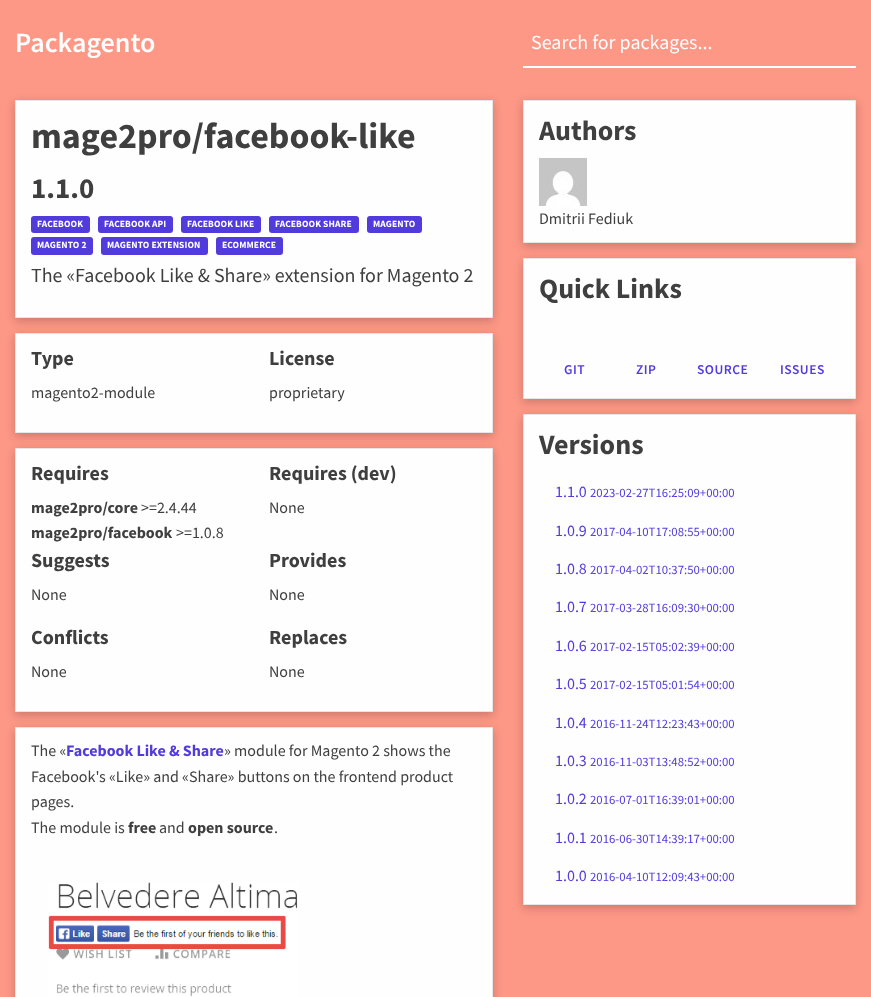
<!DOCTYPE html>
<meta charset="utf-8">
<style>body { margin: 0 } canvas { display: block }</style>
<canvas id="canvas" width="871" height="997"></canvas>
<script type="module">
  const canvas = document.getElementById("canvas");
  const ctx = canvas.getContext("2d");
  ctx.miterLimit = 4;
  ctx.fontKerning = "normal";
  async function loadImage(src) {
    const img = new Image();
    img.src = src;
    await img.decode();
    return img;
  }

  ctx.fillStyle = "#fd9786";
  ctx.fillRect(0, 0, 871, 997);
  ctx.font = "600 28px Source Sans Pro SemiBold";
  ctx.fillStyle = "#fefefe";
  ctx.fillText("Packagento", 15, 52);
  ctx.fillRect(523, 66, 333, 2);
  ctx.font = "20px Source Sans Pro";
  ctx.fillText("Search for packages...", 531, 49);
  ctx.fillStyle = "rgba(0, 0, 0, 0.2)";
  ctx.filter = "blur(5px)";
  ctx.beginPath();
  ctx.rect(15, 103, 478, 218);
  ctx.fill();
  ctx.filter = "none";
  ctx.fillStyle = "#fefefe";
  ctx.beginPath();
  ctx.rect(15.5, 100.5, 477, 217);
  ctx.fill();
  ctx.strokeStyle = "#e6e6e6";
  ctx.stroke();
  ctx.font = "bold 36px Source Sans Pro";
  ctx.fillStyle = "#3f3f3f";
  ctx.fillText("mage2pro/facebook-like", 31, 148);
  ctx.font = "bold 29px Source Sans Pro";
  ctx.fillText("1.1.0", 31, 198);
  ctx.fillStyle = "#523bdc";
  ctx.beginPath();
  ctx.roundRect(31, 216, 59, 17, 3);
  ctx.fill();
  ctx.letterSpacing = "0.1px";
  ctx.font = "bold 9.5px Source Sans Pro";
  ctx.fillStyle = "#fefefe";
  ctx.fillText("FACEBOOK", 37, 227);
  ctx.fillStyle = "#523bdc";
  ctx.beginPath();
  ctx.roundRect(98, 216, 75, 17, 3);
  ctx.fill();
  ctx.fillStyle = "#fefefe";
  ctx.fillText("FACEBOOK API", 104, 227);
  ctx.fillStyle = "#523bdc";
  ctx.beginPath();
  ctx.roundRect(181, 216, 80, 17, 3);
  ctx.fill();
  ctx.fillStyle = "#fefefe";
  ctx.fillText("FACEBOOK LIKE", 187, 227);
  ctx.fillStyle = "#523bdc";
  ctx.beginPath();
  ctx.roundRect(269, 216, 90, 17, 3);
  ctx.fill();
  ctx.fillStyle = "#fefefe";
  ctx.fillText("FACEBOOK SHARE", 275, 227);
  ctx.fillStyle = "#523bdc";
  ctx.beginPath();
  ctx.roundRect(367, 216, 55, 17, 3);
  ctx.fill();
  ctx.fillStyle = "#fefefe";
  ctx.fillText("MAGENTO", 373, 227);
  ctx.fillStyle = "#523bdc";
  ctx.beginPath();
  ctx.roundRect(31, 237, 62, 18, 3);
  ctx.fill();
  ctx.fillStyle = "#fefefe";
  ctx.fillText("MAGENTO 2", 37, 248);
  ctx.fillStyle = "#523bdc";
  ctx.beginPath();
  ctx.roundRect(101, 237, 107, 18, 3);
  ctx.fill();
  ctx.fillStyle = "#fefefe";
  ctx.fillText("MAGENTO EXTENSION", 107, 248);
  ctx.fillStyle = "#523bdc";
  ctx.beginPath();
  ctx.roundRect(216, 237, 67, 18, 3);
  ctx.fill();
  ctx.fillStyle = "#fefefe";
  ctx.fillText("ECOMMERCE", 222, 248);
  ctx.letterSpacing = "0px";
  ctx.font = "20px Source Sans Pro";
  ctx.fillStyle = "#3f3f3f";
  ctx.fillText("The «Facebook Like & Share» extension for Magento 2", 31, 282);
  ctx.fillStyle = "rgba(0, 0, 0, 0.2)";
  ctx.filter = "blur(5px)";
  ctx.beginPath();
  ctx.rect(15, 336, 478, 100);
  ctx.fill();
  ctx.filter = "none";
  ctx.fillStyle = "#fefefe";
  ctx.beginPath();
  ctx.rect(15.5, 333.5, 477, 99);
  ctx.fill();
  ctx.stroke();
  ctx.font = "bold 20px Source Sans Pro";
  ctx.fillStyle = "#3f3f3f";
  ctx.fillText("Type", 31, 365);
  ctx.font = "16px Source Sans Pro";
  ctx.fillText("magento2-module", 31, 398);
  ctx.font = "bold 20px Source Sans Pro";
  ctx.fillText("License", 269, 365);
  ctx.font = "16px Source Sans Pro";
  ctx.fillText("proprietary", 269, 398);
  ctx.fillStyle = "rgba(0, 0, 0, 0.2)";
  ctx.filter = "blur(5px)";
  ctx.beginPath();
  ctx.rect(15, 451, 478, 264);
  ctx.fill();
  ctx.filter = "none";
  ctx.fillStyle = "#fefefe";
  ctx.beginPath();
  ctx.rect(15.5, 448.5, 477, 263);
  ctx.fill();
  ctx.stroke();
  ctx.font = "bold 20px Source Sans Pro";
  ctx.fillStyle = "#3f3f3f";
  ctx.fillText("Requires", 31, 480);
  ctx.font = "bold 16px Source Sans Pro";
  ctx.fillText("mage2pro/core", 31, 513);
  ctx.font = "16px Source Sans Pro";
  ctx.fillText(">=2.4.44", 141, 513);
  ctx.font = "bold 16px Source Sans Pro";
  ctx.fillText("mage2pro/facebook", 31, 538);
  ctx.font = "16px Source Sans Pro";
  ctx.fillText(">=1.0.8", 176, 538);
  ctx.font = "bold 20px Source Sans Pro";
  ctx.fillText("Requires (dev)", 269, 480);
  ctx.font = "16px Source Sans Pro";
  ctx.fillText("None", 269, 513);
  ctx.font = "bold 20px Source Sans Pro";
  ctx.fillText("Suggests", 31, 567);
  ctx.font = "16px Source Sans Pro";
  ctx.fillText("None", 31, 600);
  ctx.font = "bold 20px Source Sans Pro";
  ctx.fillText("Provides", 269, 567);
  ctx.font = "16px Source Sans Pro";
  ctx.fillText("None", 269, 600);
  ctx.font = "bold 20px Source Sans Pro";
  ctx.fillText("Conflicts", 31, 644);
  ctx.font = "16px Source Sans Pro";
  ctx.fillText("None", 31, 677);
  ctx.font = "bold 20px Source Sans Pro";
  ctx.fillText("Replaces", 269, 644);
  ctx.font = "16px Source Sans Pro";
  ctx.fillText("None", 269, 677);
  ctx.fillStyle = "rgba(0, 0, 0, 0.2)";
  ctx.filter = "blur(5px)";
  ctx.beginPath();
  ctx.rect(15, 730, 478, 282);
  ctx.fill();
  ctx.filter = "none";
  ctx.fillStyle = "#fefefe";
  ctx.beginPath();
  ctx.rect(15.5, 727.5, 477, 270);
  ctx.fill();
  ctx.stroke();
  ctx.fillStyle = "#3f3f3f";
  ctx.fillText("The «", 31, 756);
  ctx.font = "bold 16px Source Sans Pro";
  ctx.fillStyle = "#523bdc";
  ctx.fillText("Facebook Like & Share", 66, 756);
  ctx.font = "16px Source Sans Pro";
  ctx.fillStyle = "#3f3f3f";
  ctx.fillText("» module for Magento 2 shows the", 224, 756);
  ctx.fillText("Facebook's «Like» and «Share» buttons on the frontend product", 31, 782);
  ctx.fillText("pages.", 31, 807);
  ctx.fillText("The module is", 31, 833);
  ctx.font = "bold 16px Source Sans Pro";
  ctx.fillText("free", 128, 833);
  ctx.font = "16px Source Sans Pro";
  ctx.fillText("and", 159, 833);
  ctx.font = "bold 16px Source Sans Pro";
  ctx.fillText("open source", 188, 833);
  ctx.font = "16px Source Sans Pro";
  ctx.fillText(".", 274, 833);
  ctx.drawImage(await loadImage("img1.png"), 48, 882, 250, 115);
  ctx.fillStyle = "rgba(0, 0, 0, 0.2)";
  ctx.filter = "blur(5px)";
  ctx.beginPath();
  ctx.rect(523, 103, 333, 143);
  ctx.fill();
  ctx.filter = "none";
  ctx.fillStyle = "#fefefe";
  ctx.beginPath();
  ctx.rect(523.5, 100.5, 332, 142);
  ctx.fill();
  ctx.stroke();
  ctx.font = "bold 28px Source Sans Pro";
  ctx.fillStyle = "#3f3f3f";
  ctx.fillText("Authors", 539, 140);
  ctx.drawImage(await loadImage("img2.png"), 539, 158, 48, 48);
  ctx.font = "16px Source Sans Pro";
  ctx.fillText("Dmitrii Fediuk", 539, 224);
  ctx.fillStyle = "rgba(0, 0, 0, 0.2)";
  ctx.filter = "blur(5px)";
  ctx.beginPath();
  ctx.rect(523, 261, 333, 141);
  ctx.fill();
  ctx.filter = "none";
  ctx.fillStyle = "#fefefe";
  ctx.beginPath();
  ctx.rect(523.5, 258.5, 332, 140);
  ctx.fill();
  ctx.stroke();
  ctx.font = "bold 28px Source Sans Pro";
  ctx.fillStyle = "#3f3f3f";
  ctx.fillText("Quick Links", 539, 298);
  ctx.letterSpacing = "0.5px";
  ctx.font = "600 13.5px Source Sans Pro SemiBold";
  ctx.fillStyle = "#523bdc";
  ctx.fillText("GIT", 564, 374);
  ctx.fillText("ZIP", 636, 374);
  ctx.fillText("SOURCE", 697, 374);
  ctx.fillText("ISSUES", 780, 374);
  ctx.fillStyle = "rgba(0, 0, 0, 0.2)";
  ctx.filter = "blur(5px)";
  ctx.beginPath();
  ctx.rect(523, 417, 333, 491);
  ctx.fill();
  ctx.filter = "none";
  ctx.fillStyle = "#fefefe";
  ctx.beginPath();
  ctx.rect(523.5, 414.5, 332, 490);
  ctx.fill();
  ctx.stroke();
  ctx.letterSpacing = "0px";
  ctx.font = "bold 28px Source Sans Pro";
  ctx.fillStyle = "#3f3f3f";
  ctx.fillText("Versions", 539, 454);
  ctx.font = "16px Source Sans Pro";
  ctx.fillStyle = "#523bdc";
  ctx.fillText("1.1.0", 555, 497);
  ctx.font = "12.75px Source Sans Pro";
  ctx.fillText("2023-02-27T16:25:09+00:00", 590, 497);
  ctx.font = "16px Source Sans Pro";
  ctx.fillText("1.0.9", 555, 536);
  ctx.font = "12.75px Source Sans Pro";
  ctx.fillText("2017-04-10T17:08:55+00:00", 590, 536);
  ctx.font = "16px Source Sans Pro";
  ctx.fillText("1.0.8", 555, 574);
  ctx.font = "12.75px Source Sans Pro";
  ctx.fillText("2017-04-02T10:37:50+00:00", 590, 574);
  ctx.font = "16px Source Sans Pro";
  ctx.fillText("1.0.7", 555, 612);
  ctx.font = "12.75px Source Sans Pro";
  ctx.fillText("2017-03-28T16:09:30+00:00", 590, 612);
  ctx.font = "16px Source Sans Pro";
  ctx.fillText("1.0.6", 555, 651);
  ctx.font = "12.75px Source Sans Pro";
  ctx.fillText("2017-02-15T05:02:39+00:00", 590, 651);
  ctx.font = "16px Source Sans Pro";
  ctx.fillText("1.0.5", 555, 689);
  ctx.font = "12.75px Source Sans Pro";
  ctx.fillText("2017-02-15T05:01:54+00:00", 590, 689);
  ctx.font = "16px Source Sans Pro";
  ctx.fillText("1.0.4", 555, 728);
  ctx.font = "12.75px Source Sans Pro";
  ctx.fillText("2016-11-24T12:23:43+00:00", 590, 728);
  ctx.font = "16px Source Sans Pro";
  ctx.fillText("1.0.3", 555, 766);
  ctx.font = "12.75px Source Sans Pro";
  ctx.fillText("2016-11-03T13:48:52+00:00", 590, 766);
  ctx.font = "16px Source Sans Pro";
  ctx.fillText("1.0.2", 555, 804);
  ctx.font = "12.75px Source Sans Pro";
  ctx.fillText("2016-07-01T16:39:01+00:00", 590, 804);
  ctx.font = "16px Source Sans Pro";
  ctx.fillText("1.0.1", 555, 843);
  ctx.font = "12.75px Source Sans Pro";
  ctx.fillText("2016-06-30T14:39:17+00:00", 590, 843);
  ctx.font = "16px Source Sans Pro";
  ctx.fillText("1.0.0", 555, 881);
  ctx.font = "12.75px Source Sans Pro";
  ctx.fillText("2016-04-10T12:09:43+00:00", 590, 881);
</script>
